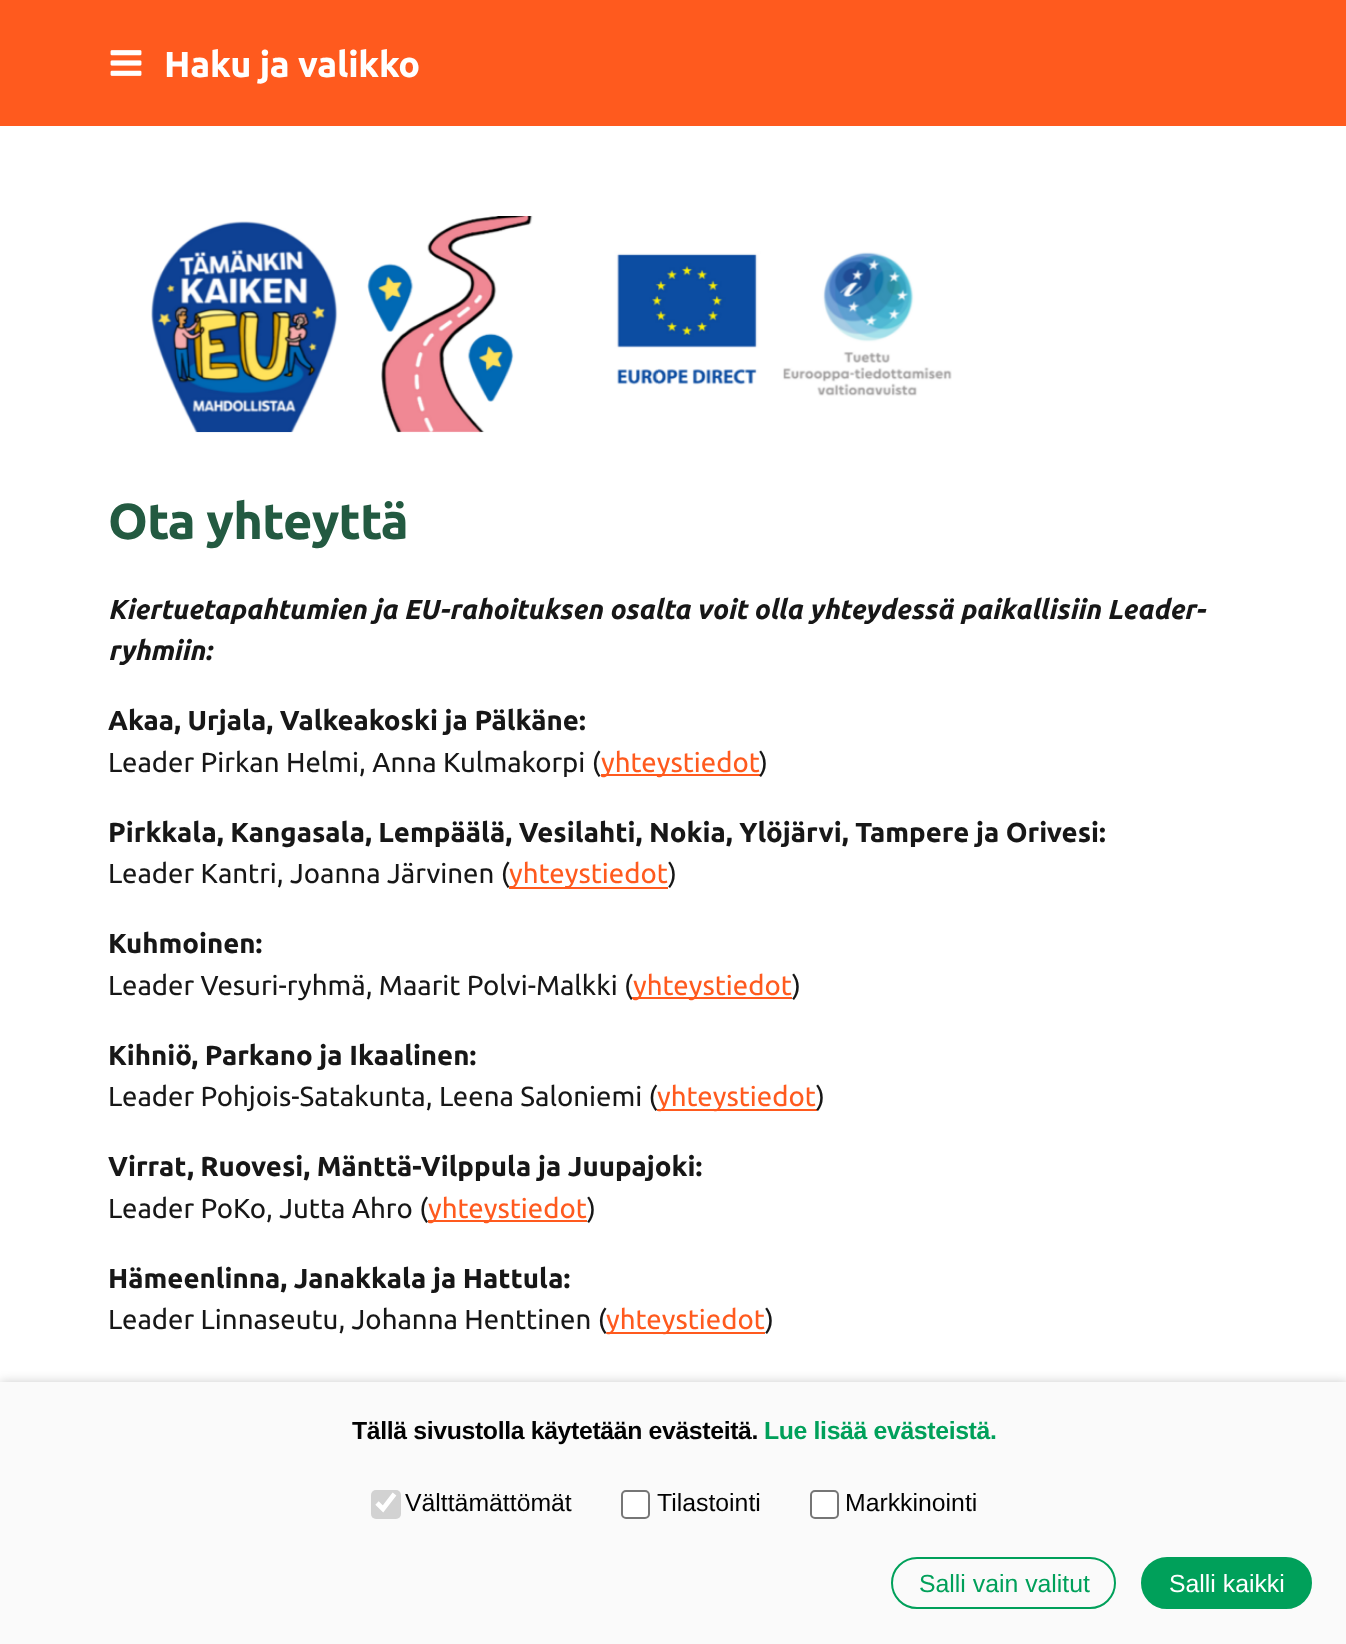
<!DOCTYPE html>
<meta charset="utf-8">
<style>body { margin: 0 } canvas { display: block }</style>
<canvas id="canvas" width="1346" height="1644"></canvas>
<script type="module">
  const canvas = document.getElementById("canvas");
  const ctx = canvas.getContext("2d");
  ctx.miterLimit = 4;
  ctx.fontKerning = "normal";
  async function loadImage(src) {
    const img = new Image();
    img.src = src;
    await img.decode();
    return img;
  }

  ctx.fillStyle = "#ffffff";
  ctx.fillRect(0, 0, 1346, 1644);
  ctx.fillStyle = "#ff5a1e";
  ctx.fillRect(0, 0, 1346, 126);
  ctx.drawImage(await loadImage("img1.png"), 110, 50, 32, 26);
  ctx.letterSpacing = "-0.2px";
  ctx.font = "bold 36px Ubuntu";
  ctx.fillStyle = "#ffffff";
  ctx.fillText("Haku ja valikko", 164, 77);
  ctx.drawImage(await loadImage("img2.png"), 151, 216, 801, 217);
  ctx.letterSpacing = "-0.75px";
  ctx.font = "bold 50.5px Ubuntu";
  ctx.fillStyle = "#235a41";
  ctx.fillText("Ota yhteyttä", 108, 539);
  ctx.letterSpacing = "0px";
  ctx.font = "italic bold 27.6px Ubuntu";
  ctx.fillStyle = "#171717";
  ctx.fillText("Kiertuetapahtumien ja EU-rahoituksen osalta voit olla yhteydessä paikallisiin Leader-", 108, 619);
  ctx.fillText("ryhmiin:", 108, 660);
  ctx.font = "bold 27.6px Ubuntu";
  ctx.fillText("Akaa, Urjala, Valkeakoski ja Pälkäne:", 108, 730);
  ctx.font = "27.6px Ubuntu";
  ctx.fillText("Leader Pirkan Helmi, Anna Kulmakorpi (", 108, 772);
  ctx.fillStyle = "#ff5a1e";
  ctx.fillRect(601, 774, 160, 2);
  ctx.fillText("yhteystiedot", 601, 772);
  ctx.fillStyle = "#171717";
  ctx.fillText(")", 759, 772);
  ctx.font = "bold 27.6px Ubuntu";
  ctx.fillText("Pirkkala, Kangasala, Lempäälä, Vesilahti, Nokia, Ylöjärvi, Tampere ja Orivesi:", 108, 842);
  ctx.font = "27.6px Ubuntu";
  ctx.fillText("Leader Kantri, Joanna Järvinen (", 108, 883);
  ctx.fillStyle = "#ff5a1e";
  ctx.fillRect(509, 887, 159, 2);
  ctx.fillText("yhteystiedot", 509, 883);
  ctx.fillStyle = "#171717";
  ctx.fillText(")", 668, 883);
  ctx.font = "bold 27.6px Ubuntu";
  ctx.fillText("Kuhmoinen:", 108, 953);
  ctx.font = "27.6px Ubuntu";
  ctx.fillText("Leader Vesuri-ryhmä, Maarit Polvi-Malkki (", 108, 995);
  ctx.fillStyle = "#ff5a1e";
  ctx.fillRect(632, 997, 160, 2);
  ctx.fillText("yhteystiedot", 633, 995);
  ctx.fillStyle = "#171717";
  ctx.fillText(")", 792, 995);
  ctx.font = "bold 27.6px Ubuntu";
  ctx.fillText("Kihniö, Parkano ja Ikaalinen:", 108, 1065);
  ctx.font = "27.6px Ubuntu";
  ctx.fillText("Leader Pohjois-Satakunta, Leena Saloniemi (", 108, 1106);
  ctx.fillStyle = "#ff5a1e";
  ctx.fillRect(657, 1109, 160, 2);
  ctx.fillText("yhteystiedot", 657, 1106);
  ctx.fillStyle = "#171717";
  ctx.fillText(")", 816, 1106);
  ctx.font = "bold 27.6px Ubuntu";
  ctx.fillText("Virrat, Ruovesi, Mänttä-Vilppula ja Juupajoki:", 108, 1176);
  ctx.font = "27.6px Ubuntu";
  ctx.fillText("Leader PoKo, Jutta Ahro (", 108, 1218);
  ctx.fillStyle = "#ff5a1e";
  ctx.fillRect(428, 1220, 159, 2);
  ctx.fillText("yhteystiedot", 428, 1218);
  ctx.fillStyle = "#171717";
  ctx.fillText(")", 587, 1218);
  ctx.font = "bold 27.6px Ubuntu";
  ctx.fillText("Hämeenlinna, Janakkala ja Hattula:", 108, 1288);
  ctx.font = "27.6px Ubuntu";
  ctx.fillText("Leader Linnaseutu, Johanna Henttinen (", 108, 1329);
  ctx.fillStyle = "#ff5a1e";
  ctx.fillRect(608, 1332, 157, 2);
  ctx.fillText("yhteystiedot", 606, 1329);
  ctx.fillStyle = "#171717";
  ctx.fillText(")", 765, 1329);
  ctx.fillStyle = "rgba(0, 0, 0, 0.2)";
  ctx.filter = "blur(5.5px)";
  ctx.beginPath();
  ctx.rect(0, 1382, 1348, 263);
  ctx.fill();
  ctx.filter = "none";
  ctx.fillStyle = "#fafafa";
  ctx.fillRect(0, 1382, 1346, 262);
  ctx.letterSpacing = "-0.35px";
  ctx.font = "bold 24.8px Liberation Sans";
  ctx.fillStyle = "#020202";
  ctx.fillText("Tällä sivustolla käytetään evästeitä.", 352, 1439);
  ctx.fillStyle = "#00a05a";
  ctx.fillText("Lue lisää evästeistä.", 764, 1439);
  ctx.fillStyle = "#d2d2d2";
  ctx.beginPath();
  ctx.roundRect(371, 1490, 30, 29, 5);
  ctx.fill();
  ctx.beginPath();
  ctx.moveTo(377, 1503);
  ctx.lineTo(383, 1509);
  ctx.lineTo(394.5, 1494);
  ctx.strokeStyle = "#ffffff";
  ctx.lineWidth = 4.7;
  ctx.stroke();
  ctx.letterSpacing = "0px";
  ctx.font = "24.8px Liberation Sans";
  ctx.fillStyle = "#020202";
  ctx.fillText("Välttämättömät", 405, 1511);
  ctx.fillStyle = "#ffffff";
  ctx.beginPath();
  ctx.roundRect(622, 1491, 27, 27, 4);
  ctx.fill();
  ctx.strokeStyle = "#767676";
  ctx.lineWidth = 2;
  ctx.stroke();
  ctx.fillStyle = "#020202";
  ctx.fillText("Tilastointi", 657, 1511);
  ctx.fillStyle = "#ffffff";
  ctx.beginPath();
  ctx.roundRect(811, 1491, 27, 27, 4);
  ctx.fill();
  ctx.stroke();
  ctx.fillStyle = "#020202";
  ctx.fillText("Markkinointi", 845, 1511);
  ctx.beginPath();
  ctx.roundRect(892, 1558, 223, 50, 25);
  ctx.strokeStyle = "#00a05a";
  ctx.stroke();
  ctx.fillStyle = "#00a05a";
  ctx.fillText("Salli vain valitut", 919, 1592);
  ctx.beginPath();
  ctx.roundRect(1142, 1558, 169, 50, 25);
  ctx.fill();
  ctx.stroke();
  ctx.fillStyle = "#ffffff";
  ctx.fillText("Salli kaikki", 1169, 1592);
</script>
